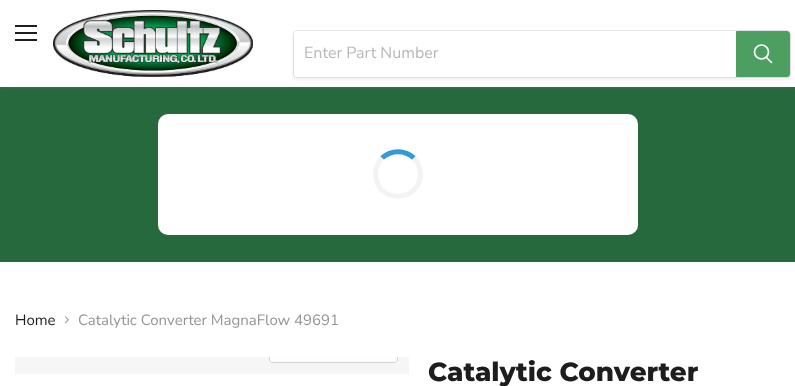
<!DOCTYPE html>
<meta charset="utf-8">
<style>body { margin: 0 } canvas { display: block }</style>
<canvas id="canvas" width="795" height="386"></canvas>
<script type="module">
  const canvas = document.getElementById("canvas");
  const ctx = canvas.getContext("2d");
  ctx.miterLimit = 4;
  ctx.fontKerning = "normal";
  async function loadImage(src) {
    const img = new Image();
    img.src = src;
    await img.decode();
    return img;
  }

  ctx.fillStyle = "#ffffff";
  ctx.fillRect(0, 0, 795, 386);
  ctx.fillStyle = "#26693d";
  ctx.fillRect(0, 87, 795, 175);
  ctx.save();
  ctx.beginPath();
  ctx.rect(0, 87, 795, 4);
  ctx.clip();
  ctx.fillStyle = "rgba(128, 128, 128, 0.25)";
  ctx.filter = "blur(2px)";
  ctx.beginPath();
  ctx.rect(0, 1, 795, 87);
  ctx.fill();
  ctx.filter = "none";
  ctx.restore();
  ctx.fillStyle = "#1d1d1d";
  ctx.fillRect(15, 25, 22, 2);
  ctx.fillRect(15, 32, 22, 2);
  ctx.fillRect(15, 39, 22, 2);
  ctx.drawImage(await loadImage("img1.png"), 53, 10, 200, 67);
  ctx.fillStyle = "rgba(128, 128, 128, 0.11)";
  ctx.filter = "blur(1.5px)";
  ctx.beginPath();
  ctx.roundRect(293, 32, 498, 48, 4);
  ctx.fill();
  ctx.filter = "none";
  ctx.beginPath();
  ctx.roundRect(293.5, 30.5, 497, 47, 3.5);
  ctx.strokeStyle = "rgba(128, 128, 128, 0.2)";
  ctx.stroke();
  ctx.fillStyle = "#ffffff";
  ctx.beginPath();
  ctx.roundRect(294, 31, 442, 46, [3, 0, 0, 3]);
  ctx.fill();
  ctx.font = "16px Nunito Sans";
  ctx.fillStyle = "#b8b8b8";
  ctx.fillText("Enter Part Number", 304, 58);
  ctx.fillStyle = "#4c9f60";
  ctx.beginPath();
  ctx.roundRect(736.5, 31.5, 53, 45, [0, 2.5, 2.5, 0]);
  ctx.fill();
  ctx.strokeStyle = "#4c9f60";
  ctx.stroke();
  ctx.beginPath();
  ctx.moveTo(771.5, 62.5);
  ctx.lineTo(766.5, 57.5);
  ctx.strokeStyle = "#ffffff";
  ctx.lineWidth = 1.7;
  ctx.lineCap = "round";
  ctx.stroke();
  ctx.beginPath();
  ctx.arc(761.5, 52, 7, 0, Math.PI * 2);
  ctx.stroke();
  ctx.fillStyle = "#ffffff";
  ctx.beginPath();
  ctx.roundRect(158, 114, 480, 121, 10);
  ctx.fill();
  ctx.beginPath();
  ctx.moveTo(382, 158);
  ctx.bezierCurveTo(391, 149.5, 405, 149.5, 414, 158);
  ctx.strokeStyle = "#3498db";
  ctx.lineWidth = 5;
  ctx.lineCap = "butt";
  ctx.stroke();
  ctx.beginPath();
  ctx.moveTo(414, 158);
  ctx.bezierCurveTo(418, 162.5, 420.5, 168, 420.5, 174);
  ctx.bezierCurveTo(420.5, 201, 381, 204.5, 376, 178.5);
  ctx.bezierCurveTo(374.5, 171, 377, 163.5, 382, 158);
  ctx.strokeStyle = "#f3f3f3";
  ctx.stroke();
  ctx.font = "15px Nunito Sans";
  ctx.fillStyle = "#1d1d1d";
  ctx.fillText("Home", 15, 325);
  ctx.drawImage(await loadImage("img2.png"), 64, 316, 5, 8);
  ctx.fillStyle = "#949494";
  ctx.fillText("Catalytic Converter MagnaFlow 49691", 78, 325);
  ctx.fillStyle = "#f6f6f6";
  ctx.fillRect(15, 357, 394, 17);
  ctx.save();
  ctx.beginPath();
  ctx.rect(15, 357, 394, 17);
  ctx.clip();
  ctx.beginPath();
  ctx.roundRect(269.5, 334.5, 128, 28, 3.5);
  ctx.strokeStyle = "#d1d1d1";
  ctx.lineWidth = 1;
  ctx.stroke();
  ctx.restore();
  ctx.fillStyle = "rgba(255, 255, 255, 0.9)";
  ctx.beginPath();
  ctx.roundRect(270, 357, 127, 5, [0, 0, 3, 3]);
  ctx.fill();
  ctx.font = "800 26.25px Montserrat";
  ctx.fillStyle = "#1d1d1d";
  ctx.fillText("Catalytic Converter", 428, 381);
</script>
